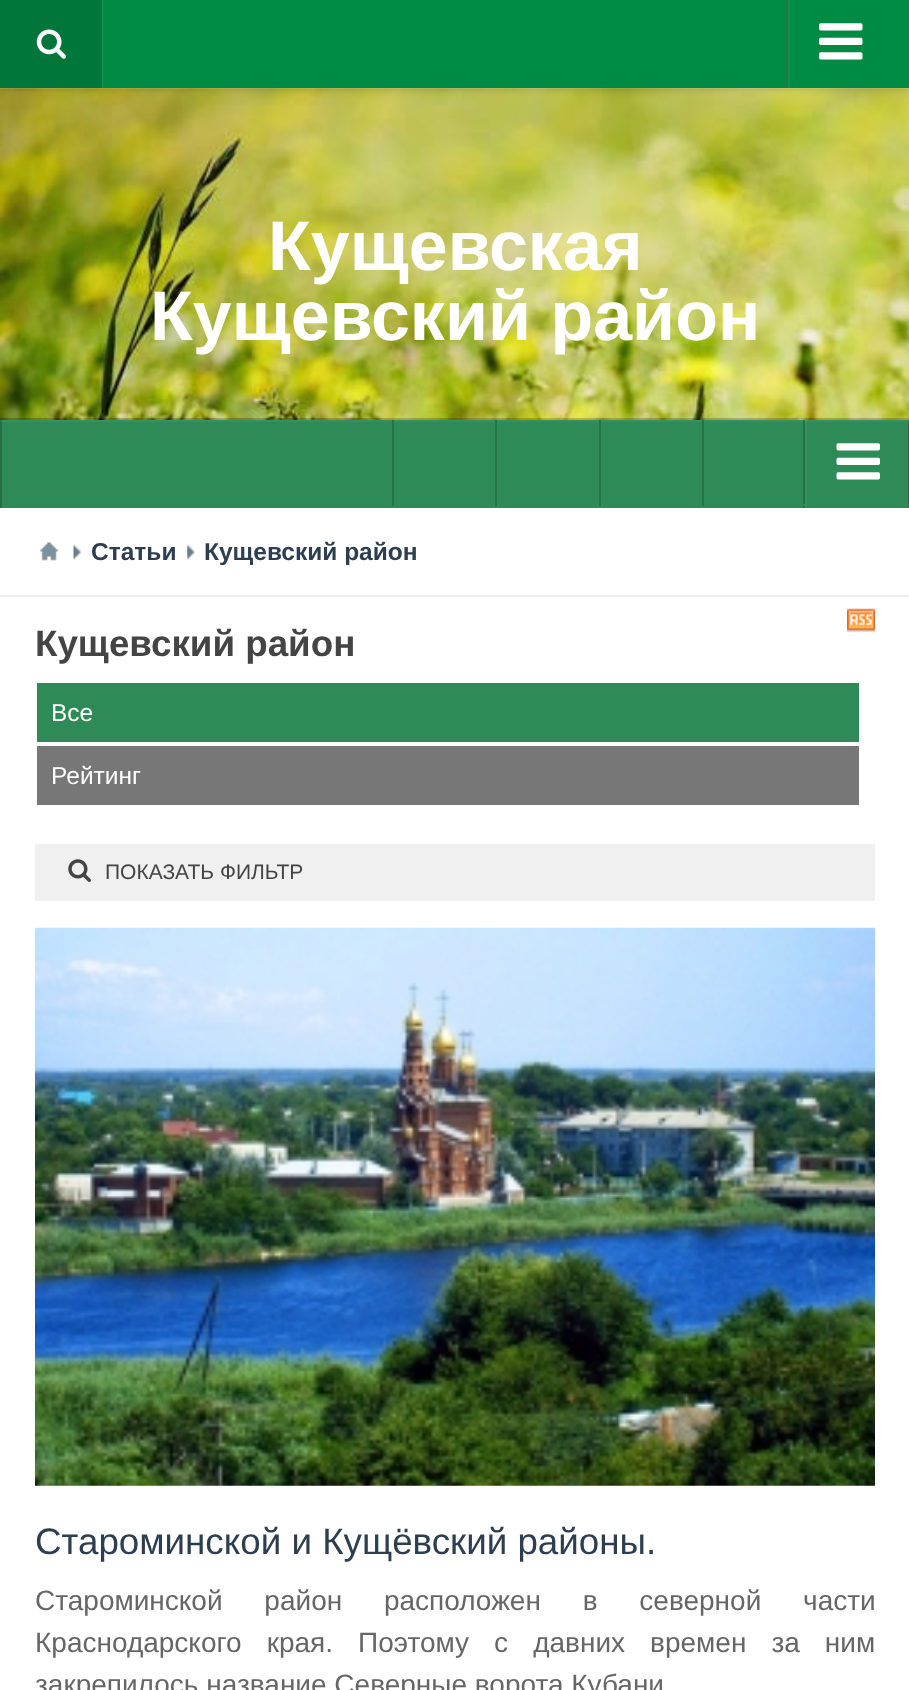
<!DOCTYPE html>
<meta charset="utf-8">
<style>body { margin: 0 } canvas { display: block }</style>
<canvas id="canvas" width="909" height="1690"></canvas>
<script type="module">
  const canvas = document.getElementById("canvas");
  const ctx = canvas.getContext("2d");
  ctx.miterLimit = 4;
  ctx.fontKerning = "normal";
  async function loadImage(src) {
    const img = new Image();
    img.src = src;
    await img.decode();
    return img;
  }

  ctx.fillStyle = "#ffffff";
  ctx.fillRect(0, 0, 909, 1690);
  ctx.drawImage(await loadImage("img3.png"), 0, 88, 909, 332);
  ctx.fillStyle = "rgba(255, 255, 255, 0.15)";
  ctx.fillRect(0, 88, 909, 1);
  ctx.fillStyle = "rgba(0, 0, 0, 0.2)";
  ctx.filter = "blur(4.5px)";
  ctx.beginPath();
  ctx.rect(0, 0, 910, 88);
  ctx.fill();
  ctx.filter = "none";
  ctx.fillStyle = "#008b45";
  ctx.fillRect(103, 0, 806, 88);
  ctx.fillStyle = "#1a9758";
  ctx.beginPath();
  ctx.moveTo(2, 88);
  ctx.lineTo(103, 88);
  ctx.lineTo(103, 0);
  ctx.lineTo(102, 0);
  ctx.lineTo(102, 88);
  ctx.closePath();
  ctx.fill();
  ctx.fillStyle = "#00763b";
  ctx.fillRect(0, 0, 102, 88);
  ctx.drawImage(await loadImage("img1.png"), 36, 29, 30, 30);
  ctx.fillStyle = "#0f9250";
  ctx.fillRect(788, 0, 2, 88);
  ctx.fillStyle = "#227547";
  ctx.fillRect(786, 0, 2, 88);
  ctx.drawImage(await loadImage("img2.png"), 819, 23, 44, 37);
  ctx.font = "bold 70px Liberation Sans";
  ctx.fillStyle = "#ffffff";
  ctx.fillText("Кущевская", 268, 270);
  ctx.fillText("Кущевский район", 150, 340);
  ctx.fillStyle = "rgba(0, 0, 0, 0.2)";
  ctx.fillRect(0, 418, 909, 2);
  ctx.fillStyle = "#2e8b57";
  ctx.fillRect(2, 420, 906, 88);
  ctx.fillStyle = "#256f46";
  ctx.fillRect(908, 420, 1, 88);
  ctx.fillRect(0, 420, 2, 88);
  ctx.fillStyle = "rgba(255, 255, 255, 0.05)";
  ctx.fillRect(0, 420, 909, 2);
  ctx.fillStyle = "rgba(0, 0, 0, 0.2)";
  ctx.beginPath();
  ctx.moveTo(803, 420);
  ctx.lineTo(803, 508);
  ctx.lineTo(908, 508);
  ctx.lineTo(805, 508);
  ctx.lineTo(805, 420);
  ctx.closePath();
  ctx.fill();
  ctx.fillStyle = "rgba(255, 255, 255, 0.05)";
  ctx.fillRect(805, 420, 2, 88);
  ctx.drawImage(await loadImage("img4.png"), 836, 443, 44, 37);
  ctx.fillStyle = "#227547";
  ctx.fillRect(392, 420, 2, 86);
  ctx.fillRect(495, 420, 2, 86);
  ctx.fillRect(599, 420, 2, 86);
  ctx.fillStyle = "#2e8b57";
  ctx.fillRect(803, 504, 2, 2);
  ctx.fillStyle = "#227547";
  ctx.fillRect(702, 420, 2, 86);
  ctx.fillStyle = "#eeeeee";
  ctx.fillRect(0, 595, 909, 2);
  ctx.drawImage(await loadImage("img5.png"), 39, 542, 20, 19);
  ctx.drawImage(await loadImage("img6.png"), 73, 544, 8, 16);
  ctx.font = "bold 24.5px Liberation Sans";
  ctx.fillStyle = "#2c3e50";
  ctx.fillText("Статьи", 91, 560);
  ctx.drawImage(await loadImage("img7.png"), 187, 544, 8, 16);
  ctx.fillText("Кущевский район", 204, 560);
  ctx.drawImage(await loadImage("img8.png"), 847, 608, 28, 25);
  ctx.font = "bold 36.75px Liberation Sans";
  ctx.fillStyle = "#444444";
  ctx.fillText("Кущевский район", 35, 656);
  ctx.fillStyle = "#2e8b57";
  ctx.fillRect(37, 683, 822, 59);
  ctx.font = "24.5px Liberation Sans";
  ctx.fillStyle = "#ffffff";
  ctx.fillText("Все", 51, 721);
  ctx.fillStyle = "#777777";
  ctx.fillRect(37, 746, 822, 59);
  ctx.fillStyle = "#ffffff";
  ctx.fillText("Рейтинг", 51, 784);
  ctx.fillStyle = "#f0f0f0";
  ctx.fillRect(35, 844, 840, 57);
  ctx.drawImage(await loadImage("img9.png"), 68, 859, 23, 23);
  ctx.font = "21px Liberation Sans";
  ctx.fillStyle = "#444444";
  ctx.fillText("ПОКАЗАТЬ ФИЛЬТР", 105, 879);
  ctx.drawImage(await loadImage("img10.png"), 35, 927, 840, 559);
  ctx.font = "36.75px Liberation Sans";
  ctx.fillStyle = "#2c3e50";
  ctx.fillText("Староминской и Кущёвский районы.", 35, 1554);
  ctx.wordSpacing = "34px";
  ctx.font = "28px Liberation Sans";
  ctx.fillStyle = "#666666";
  ctx.fillText("Староминской район расположен в северной части", 35, 1610);
  ctx.wordSpacing = "17.25px";
  ctx.fillText("Краснодарского края. Поэтому с давних времен за ним", 35, 1652);
  ctx.wordSpacing = "0px";
  ctx.fillText("закрепилось название Северные ворота Кубани", 35, 1694);
</script>
